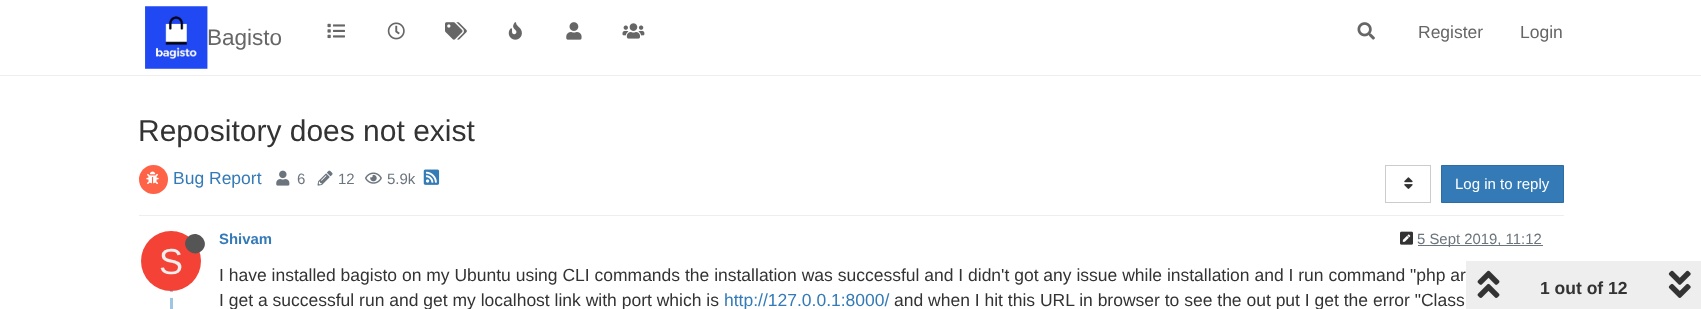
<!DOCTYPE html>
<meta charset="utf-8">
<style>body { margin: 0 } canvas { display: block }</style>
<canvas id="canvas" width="1701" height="309"></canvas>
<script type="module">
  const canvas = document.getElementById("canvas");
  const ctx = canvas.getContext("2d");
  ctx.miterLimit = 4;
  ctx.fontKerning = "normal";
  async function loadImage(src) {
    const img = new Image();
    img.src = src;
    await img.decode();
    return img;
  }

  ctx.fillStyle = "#ffffff";
  ctx.fillRect(0, 0, 1701, 309);
  ctx.fillStyle = "#eeeeee";
  ctx.fillRect(0, 75, 1701, 1);
  ctx.drawImage(await loadImage("img1.png"), 145, 6, 63, 63);
  ctx.font = "22.5px Liberation Sans";
  ctx.fillStyle = "#666666";
  ctx.fillText("Bagisto", 207, 45);
  ctx.drawImage(await loadImage("img2.png"), 327, 23, 18, 16);
  ctx.drawImage(await loadImage("img3.png"), 387, 22, 18, 18);
  ctx.drawImage(await loadImage("img4.png"), 445, 22, 22, 18);
  ctx.drawImage(await loadImage("img5.png"), 508, 22, 14, 18);
  ctx.drawImage(await loadImage("img6.png"), 566, 22, 16, 18);
  ctx.drawImage(await loadImage("img7.png"), 622, 23, 23, 16);
  ctx.drawImage(await loadImage("img8.png"), 1357, 22, 18, 18);
  ctx.font = "17.5px Liberation Sans";
  ctx.fillText("Register", 1418, 38);
  ctx.fillText("Login", 1520, 38);
  ctx.font = "30px Liberation Sans";
  ctx.fillStyle = "#333333";
  ctx.fillText("Repository does not exist", 138, 141);
  ctx.fillStyle = "#eeeeee";
  ctx.fillRect(139, 215, 1425, 1);
  ctx.fillStyle = "#ff6347";
  ctx.beginPath();
  ctx.arc(153.5, 179.5, 14.5, 0, Math.PI * 2);
  ctx.fill();
  ctx.drawImage(await loadImage("img9.png"), 146, 171, 13, 13);
  ctx.font = "17.5px Liberation Sans";
  ctx.fillStyle = "#337ab7";
  ctx.fillText("Bug Report", 173, 184);
  ctx.drawImage(await loadImage("img10.png"), 276, 170, 14, 16);
  ctx.font = "15px Liberation Sans";
  ctx.fillStyle = "#6c757d";
  ctx.fillText("6", 297, 184);
  ctx.drawImage(await loadImage("img11.png"), 317, 170, 16, 16);
  ctx.fillText("12", 338, 184);
  ctx.drawImage(await loadImage("img12.png"), 365, 172, 17, 12);
  ctx.fillText("5.9k", 387, 184);
  ctx.drawImage(await loadImage("img13.png"), 423, 169, 17, 16);
  ctx.strokeStyle = "#cccccc";
  ctx.strokeRect(1385.5, 165.5, 45, 37);
  ctx.drawImage(await loadImage("img14.png"), 1404, 177, 9, 12);
  ctx.fillStyle = "#337ab7";
  ctx.beginPath();
  ctx.rect(1441.5, 165.5, 122, 37);
  ctx.fill();
  ctx.strokeStyle = "#2e6da4";
  ctx.stroke();
  ctx.fillStyle = "#ffffff";
  ctx.fillText("Log in to reply", 1455, 189);
  ctx.fillStyle = "#a0c4e4";
  ctx.fillRect(170, 229, 3, 80);
  ctx.font = "bold 14.9px Liberation Sans";
  ctx.fillStyle = "#337ab7";
  ctx.fillText("Shivam", 219, 244);
  ctx.drawImage(await loadImage("img15.png"), 1400, 231, 13, 14);
  ctx.fillStyle = "#6c757d";
  ctx.fillRect(1418, 245, 125, 1);
  ctx.font = "14.9px Liberation Sans";
  ctx.fillText("5 Sept 2019, 11:12", 1417, 244);
  ctx.beginPath();
  ctx.arc(171.5, 261.5, 33.5, 0, Math.PI * 2);
  ctx.strokeStyle = "#ffffff";
  ctx.lineWidth = 6;
  ctx.stroke();
  ctx.fillStyle = "#f44336";
  ctx.beginPath();
  ctx.arc(171, 261, 30, 0, Math.PI * 2);
  ctx.fill();
  ctx.fillStyle = "#555555";
  ctx.beginPath();
  ctx.moveTo(188, 237);
  ctx.bezierCurveTo(197, 228, 211, 241.5, 202, 250.5);
  ctx.bezierCurveTo(193, 259.5, 179, 246, 188, 237);
  ctx.closePath();
  ctx.fill();
  ctx.font = "36px Liberation Sans";
  ctx.fillStyle = "#eeeeee";
  ctx.fillText("S", 159, 274);
  ctx.font = "17.5px Liberation Sans";
  ctx.fillStyle = "#333333";
  ctx.fillText("I have installed bagisto on my Ubuntu using CLI commands the installation was successful and I didn't got any issue while installation and I run command \"php ar", 219, 281);
  ctx.fillText("I get a successful run and get my localhost link with port which is", 219, 306);
  ctx.fillStyle = "#337ab7";
  ctx.fillText("http://127.0.0.1:8000/", 724, 306);
  ctx.fillStyle = "#333333";
  ctx.fillText("and when I hit this URL in browser to see the out put I get the error \"Class", 894, 306);
  ctx.fillStyle = "#eeeeee";
  ctx.fillRect(1466, 261, 235, 48);
  ctx.drawImage(await loadImage("img16.png"), 1477, 270, 23, 28);
  ctx.font = "bold 17.5px Liberation Sans";
  ctx.fillStyle = "#333333";
  ctx.fillText("1 out of 12", 1540, 294);
  ctx.drawImage(await loadImage("img17.png"), 1668, 270, 23, 28);
</script>
